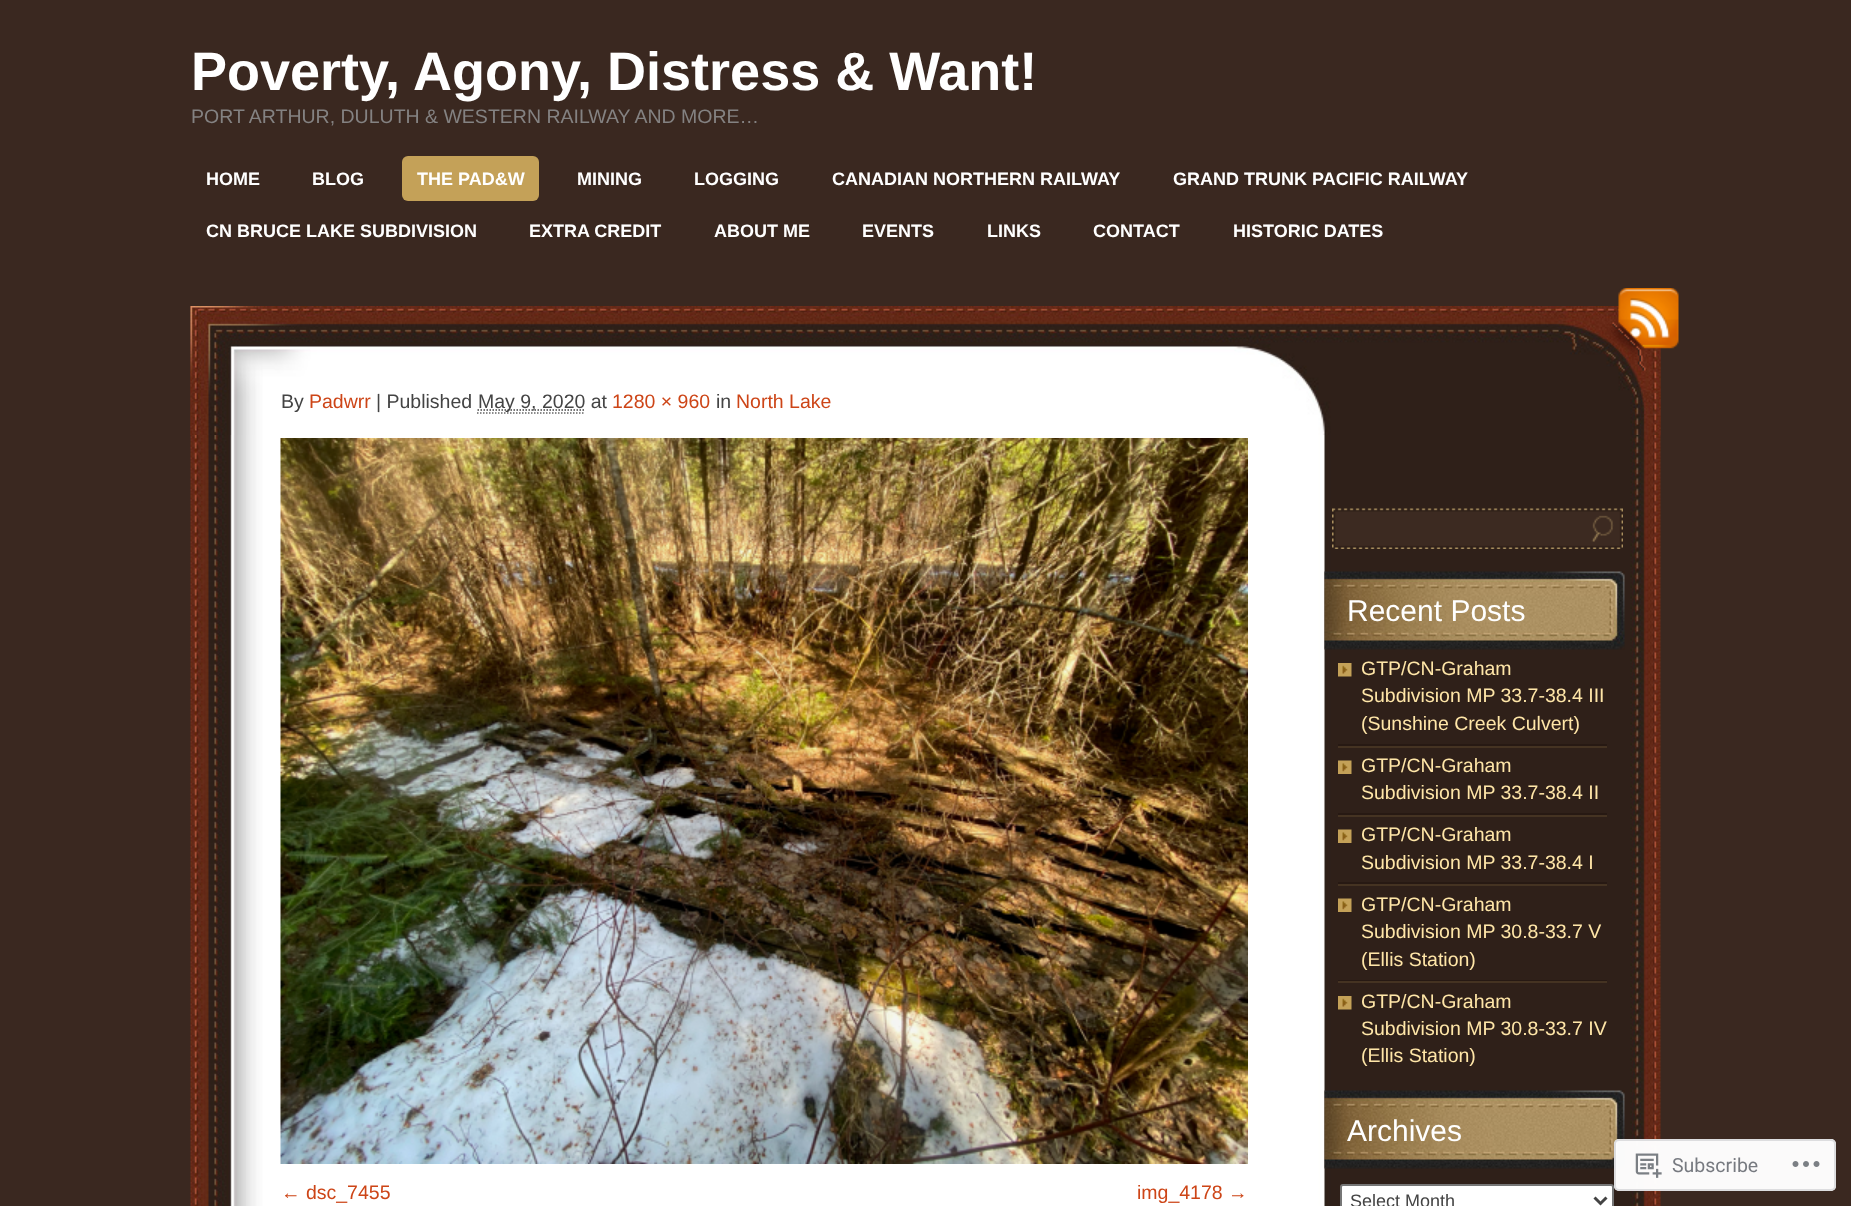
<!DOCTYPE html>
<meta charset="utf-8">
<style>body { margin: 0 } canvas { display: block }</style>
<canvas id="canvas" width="1851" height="1206"></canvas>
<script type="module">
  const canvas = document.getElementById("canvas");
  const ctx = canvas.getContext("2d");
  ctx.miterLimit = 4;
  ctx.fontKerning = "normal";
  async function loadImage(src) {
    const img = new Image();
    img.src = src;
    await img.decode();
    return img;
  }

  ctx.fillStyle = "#3a2820";
  ctx.fillRect(0, 0, 1851, 1206);
  ctx.font = "bold 54px Liberation Sans";
  ctx.fillStyle = "#ffffff";
  ctx.fillText("Poverty, Agony, Distress & Want!", 191, 90);
  ctx.font = "19.5px Liberation Sans";
  ctx.fillStyle = "#848282";
  ctx.fillText("PORT ARTHUR, DULUTH & WESTERN RAILWAY AND MORE…", 191, 123);
  ctx.font = "bold 18px Liberation Sans";
  ctx.fillStyle = "#ffffff";
  ctx.fillText("HOME", 206, 185);
  ctx.fillText("BLOG", 312, 185);
  ctx.fillStyle = "#c4a158";
  ctx.beginPath();
  ctx.roundRect(402, 156, 137, 45, 6);
  ctx.fill();
  ctx.fillStyle = "#ffffff";
  ctx.fillText("THE PAD&W", 417, 185);
  ctx.fillText("MINING", 577, 185);
  ctx.fillText("LOGGING", 694, 185);
  ctx.fillText("CANADIAN NORTHERN RAILWAY", 832, 185);
  ctx.fillText("GRAND TRUNK PACIFIC RAILWAY", 1173, 185);
  ctx.fillText("CN BRUCE LAKE SUBDIVISION", 206, 237);
  ctx.fillText("EXTRA CREDIT", 529, 237);
  ctx.fillText("ABOUT ME", 714, 237);
  ctx.fillText("EVENTS", 862, 237);
  ctx.fillText("LINKS", 987, 237);
  ctx.fillText("CONTACT", 1093, 237);
  ctx.fillText("HISTORIC DATES", 1233, 237);
  ctx.drawImage(await loadImage("img1.png"), 190, 306, 1471, 900);
  ctx.drawImage(await loadImage("img3.png"), 190, 306, 1471, 129);
  ctx.drawImage(await loadImage("img2.png"), 1604, 288, 75, 83);
  ctx.font = "19.5px Liberation Sans";
  ctx.fillStyle = "#444444";
  ctx.fillText("By", 281, 408);
  ctx.fillStyle = "#cd4517";
  ctx.fillText("Padwrr", 309, 408);
  ctx.fillStyle = "#444444";
  ctx.fillText("| Published", 376, 408);
  ctx.beginPath();
  ctx.moveTo(477, 413);
  ctx.lineTo(585, 413);
  ctx.strokeStyle = "#666666";
  ctx.lineWidth = 1.5;
  ctx.setLineDash([1.5, 1.5]);
  ctx.stroke();
  ctx.beginPath();
  ctx.moveTo(477.5, 410);
  ctx.lineTo(585, 410);
  ctx.strokeStyle = "#444444";
  ctx.stroke();
  ctx.fillText("May 9, 2020 at", 478, 408);
  ctx.fillStyle = "#cd4517";
  ctx.fillText("1280 × 960", 612, 408);
  ctx.fillStyle = "#444444";
  ctx.fillText("in", 716, 408);
  ctx.fillStyle = "#cd4517";
  ctx.fillText("North Lake", 736, 408);
  ctx.drawImage(await loadImage("img4.png"), 280, 438, 968, 726);
  ctx.fillText("← dsc_7455", 281, 1199);
  ctx.fillText("img_4178 →", 1137, 1199);
  ctx.drawImage(await loadImage("img5.png"), 1332, 508, 291, 41);
  ctx.drawImage(await loadImage("img6.png"), 1324, 571, 301, 79);
  ctx.font = "30px Liberation Sans";
  ctx.fillStyle = "#ffffff";
  ctx.fillText("Recent Posts", 1347, 621);
  ctx.drawImage(await loadImage("img7.png"), 1338, 663, 14, 14);
  ctx.fillStyle = "#271913";
  ctx.fillRect(1338, 744, 269, 2);
  ctx.font = "19.5px Liberation Sans";
  ctx.fillStyle = "#ffe6a8";
  ctx.fillText("GTP/CN-Graham", 1361, 675);
  ctx.fillText("Subdivision MP 33.7-38.4 III", 1361, 702);
  ctx.fillText("(Sunshine Creek Culvert)", 1361, 730);
  ctx.drawImage(await loadImage("img8.png"), 1338, 760, 14, 14);
  ctx.fillStyle = "#453322";
  ctx.fillRect(1338, 746, 269, 2);
  ctx.fillStyle = "#271913";
  ctx.fillRect(1338, 813, 269, 2);
  ctx.fillStyle = "#ffe6a8";
  ctx.fillText("GTP/CN-Graham", 1361, 772);
  ctx.fillText("Subdivision MP 33.7-38.4 II", 1361, 799);
  ctx.drawImage(await loadImage("img8.png"), 1338, 829, 14, 14);
  ctx.fillStyle = "#453322";
  ctx.fillRect(1338, 815, 269, 2);
  ctx.fillStyle = "#271913";
  ctx.fillRect(1338, 882, 269, 2);
  ctx.fillStyle = "#ffe6a8";
  ctx.fillText("GTP/CN-Graham", 1361, 841);
  ctx.fillText("Subdivision MP 33.7-38.4 I", 1361, 869);
  ctx.drawImage(await loadImage("img8.png"), 1338, 898, 14, 14);
  ctx.fillStyle = "#453322";
  ctx.fillRect(1338, 884, 269, 2);
  ctx.fillStyle = "#271913";
  ctx.fillRect(1338, 980, 269, 1);
  ctx.fillStyle = "#ffe6a8";
  ctx.fillText("GTP/CN-Graham", 1361, 911);
  ctx.fillText("Subdivision MP 30.8-33.7 V", 1361, 938);
  ctx.fillText("(Ellis Station)", 1361, 966);
  ctx.drawImage(await loadImage("img7.png"), 1338, 996, 14, 14);
  ctx.fillStyle = "#453322";
  ctx.fillRect(1338, 981, 269, 2);
  ctx.fillStyle = "#ffe6a8";
  ctx.fillText("GTP/CN-Graham", 1361, 1008);
  ctx.fillText("Subdivision MP 30.8-33.7 IV", 1361, 1035);
  ctx.fillText("(Ellis Station)", 1361, 1062);
  ctx.drawImage(await loadImage("img6.png"), 1324, 1090, 301, 79);
  ctx.font = "30px Liberation Sans";
  ctx.fillStyle = "#ffffff";
  ctx.fillText("Archives", 1347, 1141);
  ctx.beginPath();
  ctx.roundRect(1341, 1185, 272, 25, 2);
  ctx.fill();
  ctx.strokeStyle = "#767676";
  ctx.lineWidth = 2;
  ctx.setLineDash([]);
  ctx.stroke();
  ctx.beginPath();
  ctx.moveTo(1594.5, 1197.5);
  ctx.lineTo(1600.5, 1203.5);
  ctx.lineTo(1606.5, 1197.5);
  ctx.strokeStyle = "#444444";
  ctx.lineWidth = 3;
  ctx.stroke();
  ctx.font = "18px Liberation Sans";
  ctx.fillStyle = "#444444";
  ctx.fillText("Select Month", 1350, 1207);
  ctx.fillStyle = "rgba(255, 255, 255, 0.98)";
  ctx.beginPath();
  ctx.roundRect(1614, 1139, 222, 52, 5);
  ctx.fill();
  ctx.beginPath();
  ctx.roundRect(1615, 1140, 220, 50, 4);
  ctx.strokeStyle = "rgba(220, 220, 222, 0.98)";
  ctx.lineWidth = 2;
  ctx.stroke();
  ctx.drawImage(await loadImage("img9.png"), 1635, 1153, 27, 25);
  ctx.font = "19.5px Roboto";
  ctx.fillStyle = "#777a80";
  ctx.fillText("Subscribe", 1672, 1172);
  ctx.drawImage(await loadImage("img10.png"), 1792, 1161, 28, 6);
</script>
